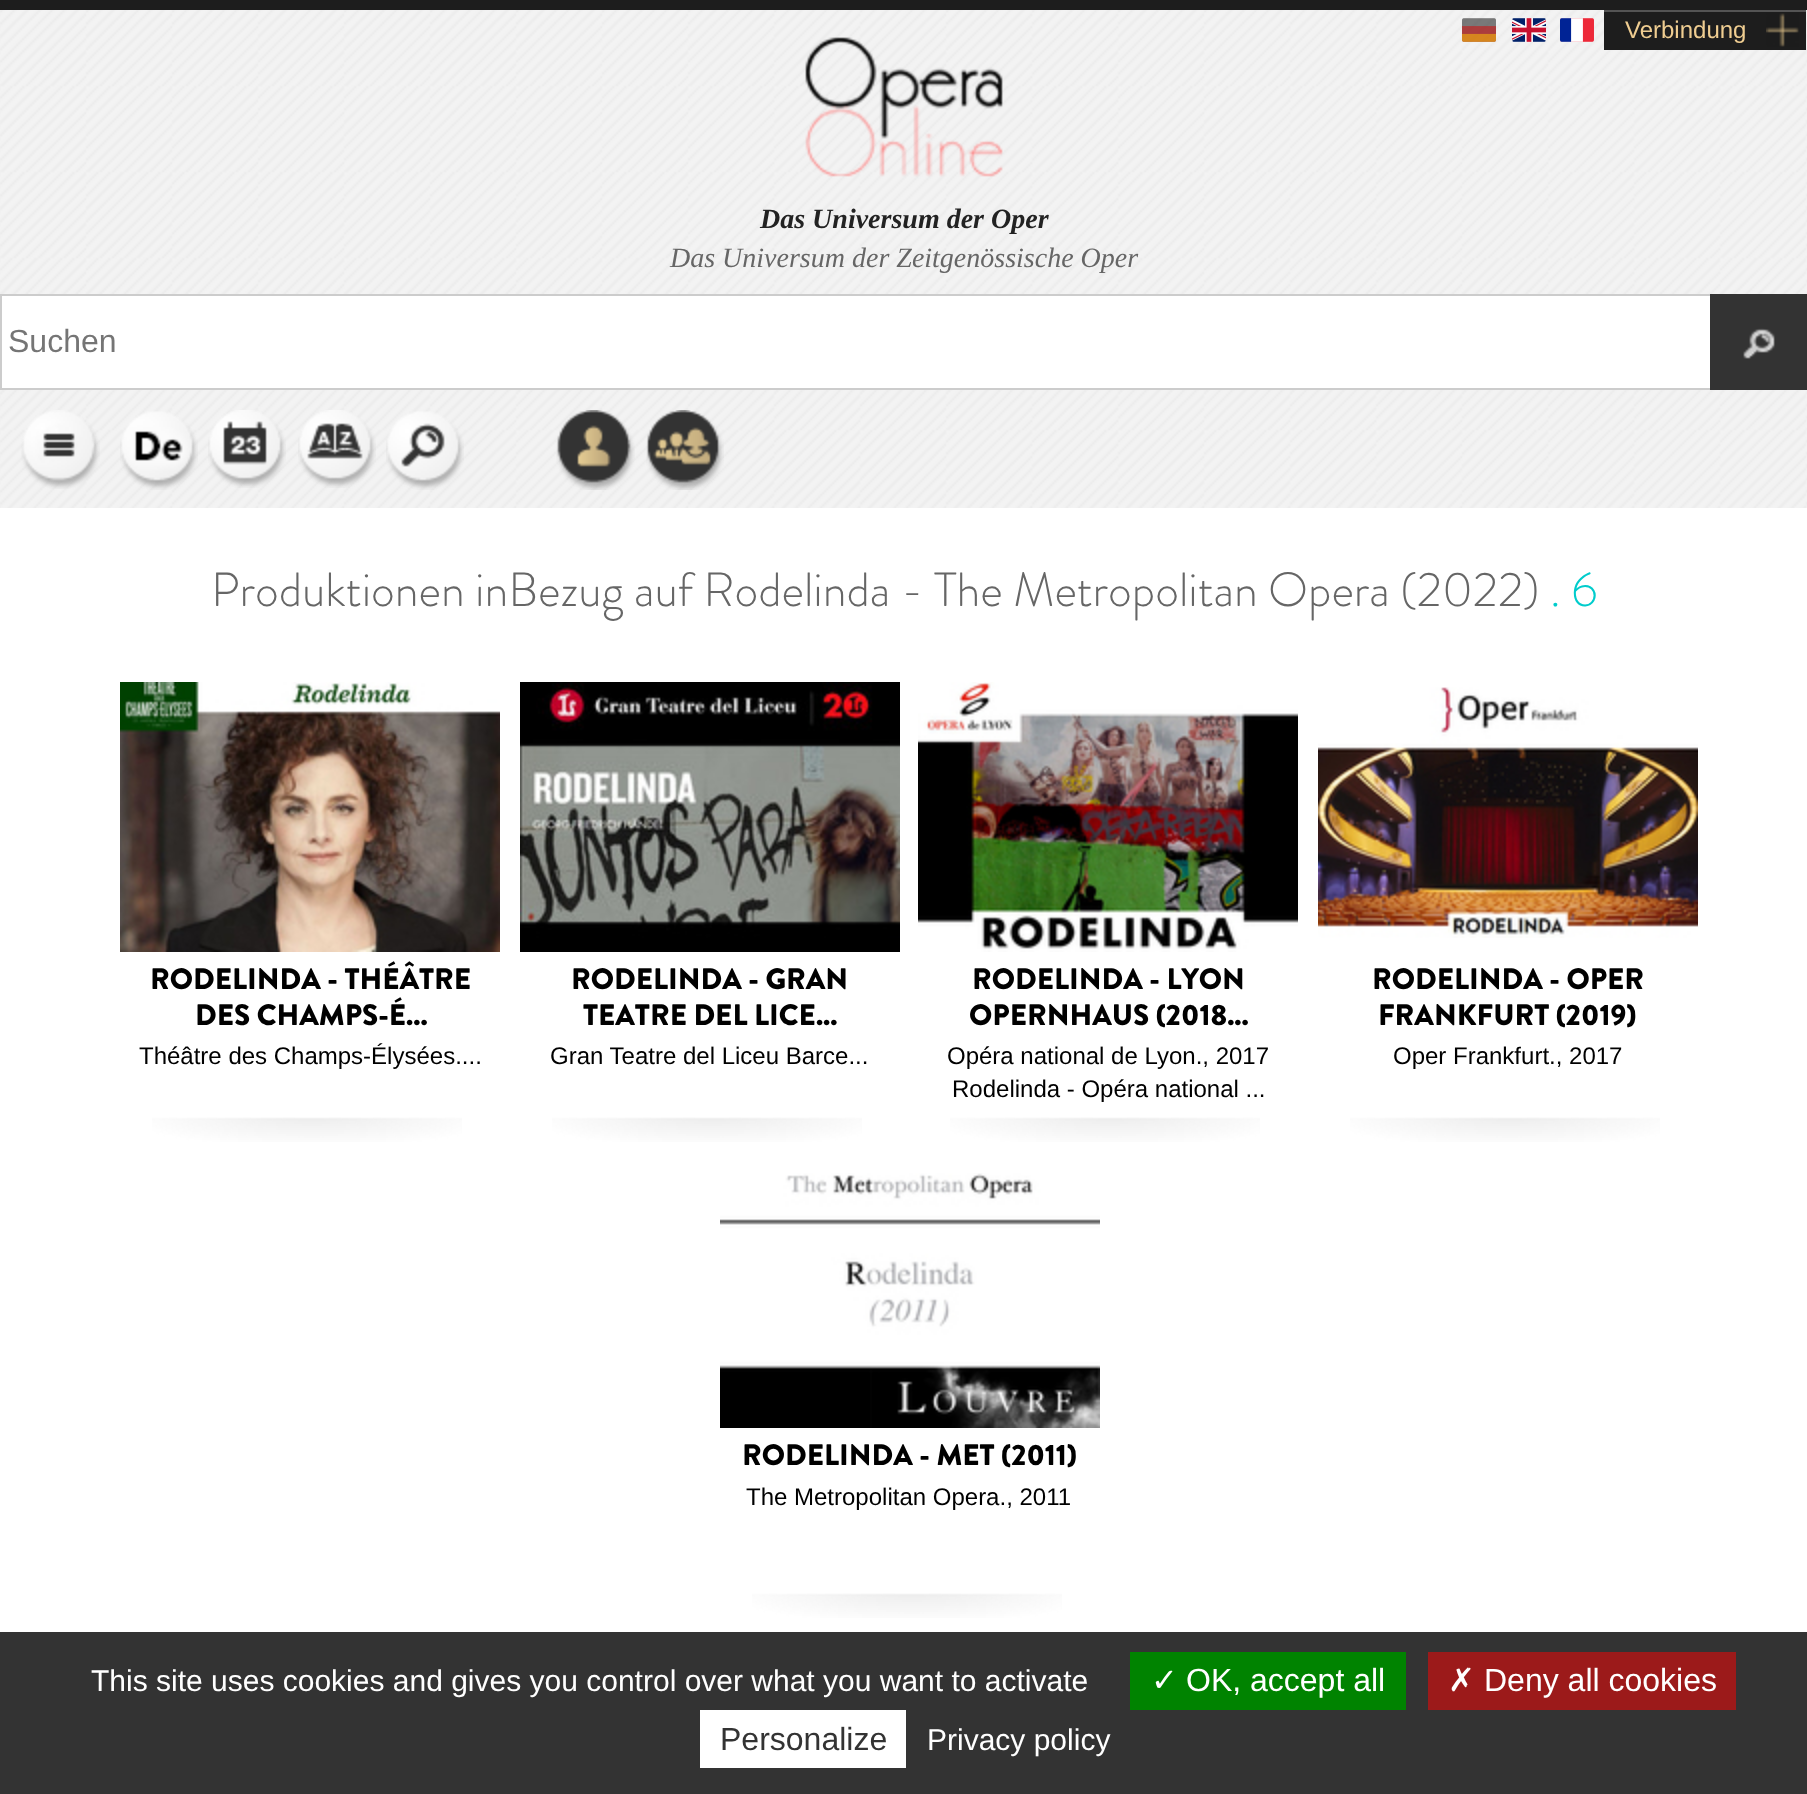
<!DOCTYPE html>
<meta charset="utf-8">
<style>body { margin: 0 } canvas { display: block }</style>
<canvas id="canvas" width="1807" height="1794"></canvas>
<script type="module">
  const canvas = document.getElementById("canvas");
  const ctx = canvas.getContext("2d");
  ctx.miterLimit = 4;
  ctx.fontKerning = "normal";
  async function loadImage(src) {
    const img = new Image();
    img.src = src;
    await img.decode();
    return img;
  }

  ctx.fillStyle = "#ffffff";
  ctx.fillRect(0, 0, 1807, 1794);
  ctx.drawImage(await loadImage("img1.png"), 0, 10, 1807, 498);
  ctx.fillStyle = "#1d1d1d";
  ctx.fillRect(0, 0, 1807, 10);
  ctx.drawImage(await loadImage("img2.png"), 1462, 18, 34, 24);
  ctx.drawImage(await loadImage("img3.png"), 1512, 18, 34, 24);
  ctx.drawImage(await loadImage("img4.png"), 1560, 18, 34, 24);
  ctx.fillRect(1604, 12, 202, 38);
  ctx.drawImage(await loadImage("img5.png"), 1766, 13, 33, 34);
  ctx.fillStyle = "#545454";
  ctx.fillRect(1604, 10, 202, 2);
  ctx.font = "24px Liberation Sans";
  ctx.fillStyle = "#efcd91";
  ctx.fillText("Verbindung", 1625, 38);
  ctx.drawImage(await loadImage("img6.png"), 805, 37, 198, 140);
  ctx.font = "italic bold 28px Liberation Serif";
  ctx.fillStyle = "#222222";
  ctx.fillText("Das Universum der Oper", 760, 228);
  ctx.font = "italic 28px Liberation Serif";
  ctx.fillStyle = "#666666";
  ctx.fillText("Das Universum der Zeitgenössische Oper", 670, 267);
  ctx.fillStyle = "#ffffff";
  ctx.fillRect(2, 296, 1708, 92);
  ctx.strokeStyle = "#cccccc";
  ctx.lineWidth = 2;
  ctx.strokeRect(1, 295, 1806, 94);
  ctx.font = "32px Liberation Sans";
  ctx.fillStyle = "#757575";
  ctx.fillText("Suchen", 8, 352);
  ctx.fillStyle = "#333333";
  ctx.fillRect(1710, 294, 97, 96);
  ctx.drawImage(await loadImage("img7.png"), 1743, 328, 32, 31);
  ctx.drawImage(await loadImage("img8.png"), 21, 410, 79, 79);
  ctx.drawImage(await loadImage("img9.png"), 120, 411, 78, 79);
  ctx.drawImage(await loadImage("img10.png"), 208, 410, 78, 78);
  ctx.drawImage(await loadImage("img11.png"), 298, 410, 78, 78);
  ctx.drawImage(await loadImage("img12.png"), 386, 411, 78, 79);
  ctx.drawImage(await loadImage("img13.png"), 556, 410, 79, 80);
  ctx.drawImage(await loadImage("img14.png"), 646, 410, 78, 80);
  ctx.font = "300 48px Brandon Grotesque";
  ctx.fillStyle = "#666666";
  ctx.fillText("Produktionen inBezug auf Rodelinda - The Metropolitan Opera (2022)", 211, 606);
  ctx.fillStyle = "#00cccc";
  ctx.fillText(". 6", 1550, 606);
  ctx.drawImage(await loadImage("img15.png"), 152, 1117, 310, 25);
  ctx.drawImage(await loadImage("img16.png"), 120, 682, 380, 270);
  ctx.font = "900 29.5px Brandon Grotesque";
  ctx.fillStyle = "#000000";
  ctx.fillText("RODELINDA - THÉÂTRE", 150, 989);
  ctx.fillText("DES CHAMPS-É...", 195, 1025);
  ctx.font = "24px Liberation Sans";
  ctx.fillText("Théâtre des Champs-Élysées....", 139, 1064);
  ctx.drawImage(await loadImage("img15.png"), 552, 1117, 310, 25);
  ctx.drawImage(await loadImage("img17.png"), 520, 682, 380, 270);
  ctx.font = "900 29.5px Brandon Grotesque";
  ctx.fillText("RODELINDA - GRAN", 571, 989);
  ctx.fillText("TEATRE DEL LICE...", 583, 1025);
  ctx.font = "24px Liberation Sans";
  ctx.fillText("Gran Teatre del Liceu Barce...", 550, 1064);
  ctx.drawImage(await loadImage("img15.png"), 950, 1117, 310, 25);
  ctx.drawImage(await loadImage("img18.png"), 918, 682, 380, 270);
  ctx.font = "900 29.5px Brandon Grotesque";
  ctx.fillText("RODELINDA - LYON", 972, 989);
  ctx.fillText("OPERNHAUS (2018...", 969, 1025);
  ctx.font = "24px Liberation Sans";
  ctx.fillText("Opéra national de Lyon., 2017", 947, 1064);
  ctx.fillText("Rodelinda - Opéra national ...", 952, 1097);
  ctx.drawImage(await loadImage("img15.png"), 1350, 1117, 310, 25);
  ctx.drawImage(await loadImage("img19.png"), 1318, 687, 380, 251);
  ctx.font = "900 29.5px Brandon Grotesque";
  ctx.fillText("RODELINDA - OPER", 1372, 989);
  ctx.fillText("FRANKFURT (2019)", 1378, 1025);
  ctx.font = "24px Liberation Sans";
  ctx.fillText("Oper Frankfurt., 2017", 1393, 1064);
  ctx.drawImage(await loadImage("img15.png"), 752, 1593, 310, 25);
  ctx.drawImage(await loadImage("img20.png"), 720, 1173, 380, 255);
  ctx.font = "900 29.5px Brandon Grotesque";
  ctx.fillText("RODELINDA - MET (2011)", 742, 1465);
  ctx.font = "24px Liberation Sans";
  ctx.fillText("The Metropolitan Opera., 2011", 746, 1505);
  ctx.fillStyle = "#333333";
  ctx.fillRect(0, 1632, 1807, 162);
  ctx.font = "30px Liberation Sans";
  ctx.fillStyle = "#ffffff";
  ctx.fillText("This site uses cookies and gives you control over what you want to activate", 91, 1691);
  ctx.fillStyle = "#008300";
  ctx.fillRect(1130, 1652, 276, 58);
  ctx.font = "32px DejaVu Sans";
  ctx.fillStyle = "#ffffff";
  ctx.fillText("✓", 1151, 1691);
  ctx.font = "32px Liberation Sans";
  ctx.fillText("OK, accept all", 1186, 1691);
  ctx.fillStyle = "#9c1a1a";
  ctx.fillRect(1428, 1652, 308, 58);
  ctx.font = "32px DejaVu Sans";
  ctx.fillStyle = "#ffffff";
  ctx.fillText("✗", 1448, 1691);
  ctx.font = "32px Liberation Sans";
  ctx.fillText("Deny all cookies", 1484, 1691);
  ctx.fillRect(700, 1710, 206, 58);
  ctx.fillStyle = "#333333";
  ctx.fillText("Personalize", 720, 1750);
  ctx.font = "30px Liberation Sans";
  ctx.fillStyle = "#ffffff";
  ctx.fillText("Privacy policy", 927, 1750);
</script>
